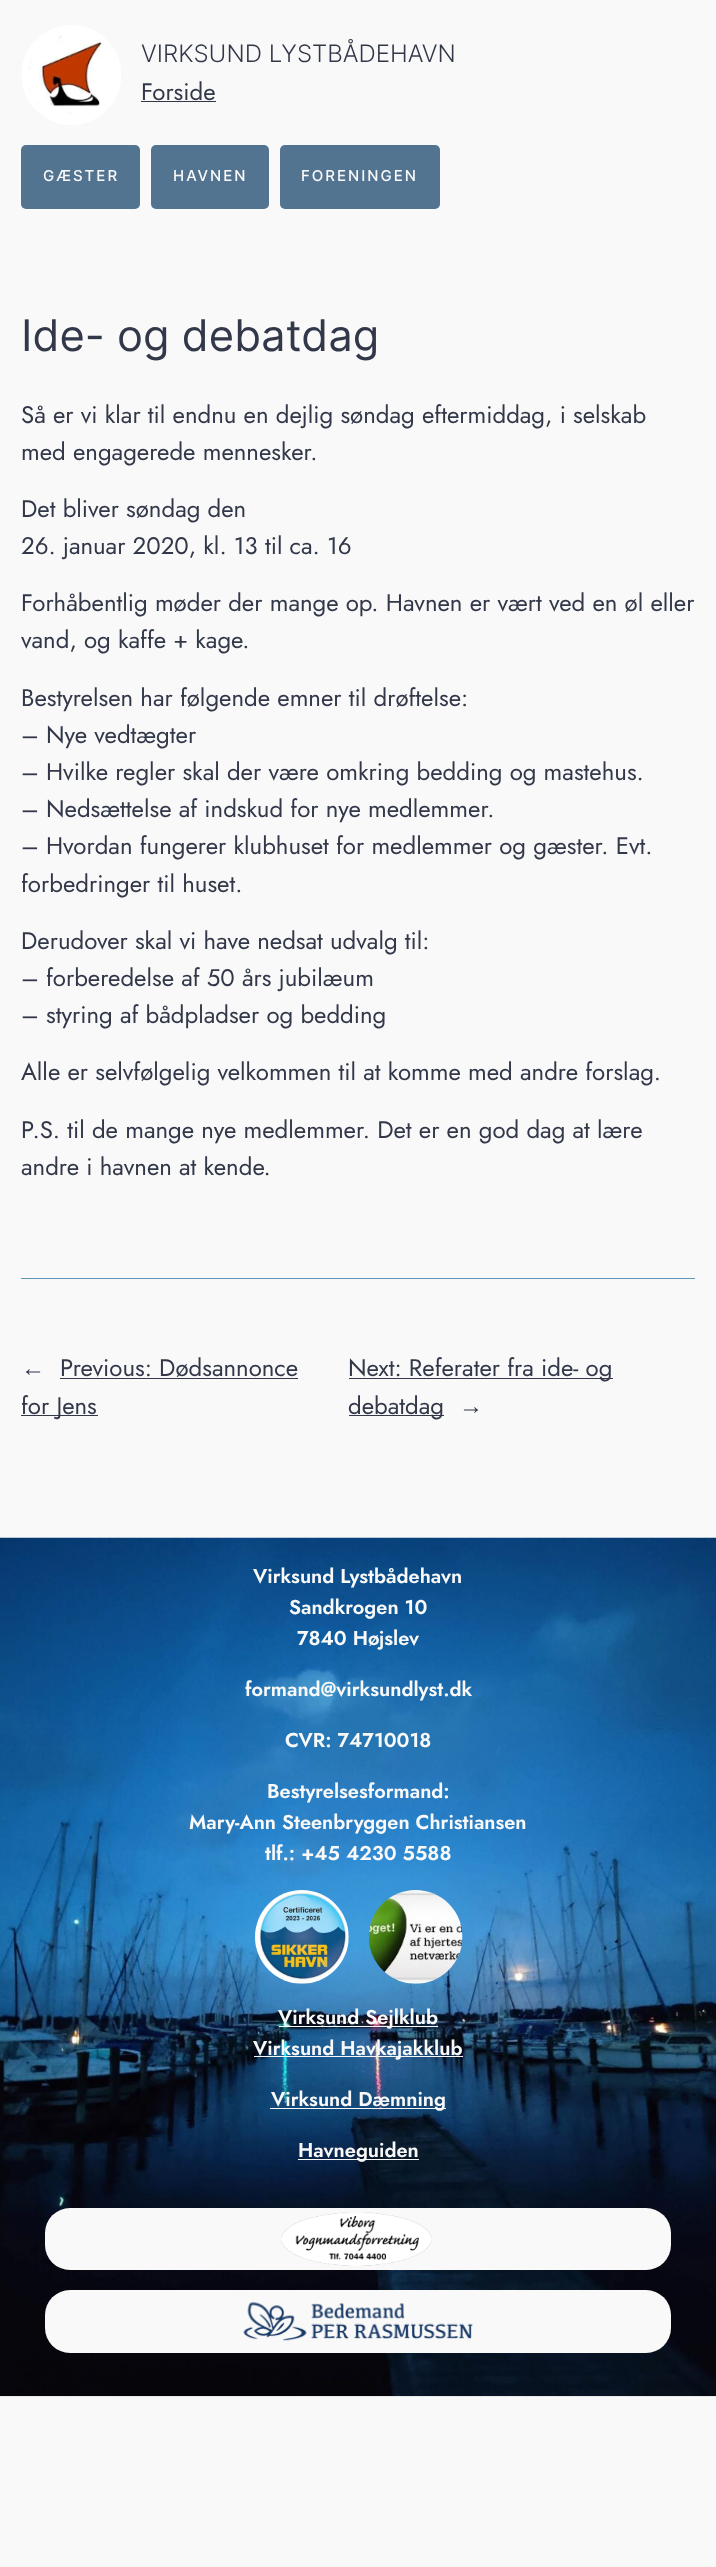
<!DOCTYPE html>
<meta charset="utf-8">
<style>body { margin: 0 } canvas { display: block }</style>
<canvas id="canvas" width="716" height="2567"></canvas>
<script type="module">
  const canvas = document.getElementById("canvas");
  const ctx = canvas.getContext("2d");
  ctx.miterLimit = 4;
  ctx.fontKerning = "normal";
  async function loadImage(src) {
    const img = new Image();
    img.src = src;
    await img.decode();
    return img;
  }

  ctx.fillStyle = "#f9f9f9";
  ctx.fillRect(0, 0, 716, 2567);
  ctx.drawImage(await loadImage("img1.png"), 22, 25, 99, 100);
  ctx.font = "300 24px Inter";
  ctx.fillStyle = "#323849";
  ctx.fillText("VIRKSUND LYSTBÅDEHAVN", 141, 62);
  ctx.font = "24px Jost";
  ctx.fillText("Forside", 141, 100);
  ctx.fillRect(141, 101, 75, 1);
  ctx.fillStyle = "#527490";
  ctx.beginPath();
  ctx.roundRect(21, 145, 119, 64, 5);
  ctx.fill();
  ctx.letterSpacing = "2px";
  ctx.font = "500 15px Inter";
  ctx.fillStyle = "#f9f9f9";
  ctx.fillText("GÆSTER", 43, 181);
  ctx.fillStyle = "#527490";
  ctx.beginPath();
  ctx.roundRect(151, 145, 118, 64, 5);
  ctx.fill();
  ctx.fillStyle = "#f9f9f9";
  ctx.fillText("HAVNEN", 173, 181);
  ctx.fillStyle = "#527490";
  ctx.beginPath();
  ctx.roundRect(280, 145, 160, 64, 5);
  ctx.fill();
  ctx.fillStyle = "#f9f9f9";
  ctx.fillText("FORENINGEN", 301, 181);
  ctx.letterSpacing = "0px";
  ctx.font = "43.5px Inter";
  ctx.fillStyle = "#323849";
  ctx.fillText("Ide- og debatdag", 21, 351);
  ctx.font = "24px Jost";
  ctx.fillText("Så er vi klar til endnu en dejlig søndag eftermiddag, i selskab", 21, 423);
  ctx.fillText("med engagerede mennesker.", 21, 460);
  ctx.fillText("Det bliver søndag den", 21, 517);
  ctx.fillText("26. januar 2020, kl. 13 til ca. 16", 21, 554);
  ctx.fillText("Forhåbentlig møder der mange op. Havnen er vært ved en øl eller", 21, 611);
  ctx.fillText("vand, og kaffe + kage.", 21, 648);
  ctx.fillText("Bestyrelsen har følgende emner til drøftelse:", 21, 706);
  ctx.fillText("– Nye vedtægter", 21, 743);
  ctx.fillText("– Hvilke regler skal der være omkring bedding og mastehus.", 21, 780);
  ctx.fillText("– Nedsættelse af indskud for nye medlemmer.", 21, 817);
  ctx.fillText("– Hvordan fungerer klubhuset for medlemmer og gæster. Evt.", 21, 854);
  ctx.fillText("forbedringer til huset.", 21, 892);
  ctx.fillText("Derudover skal vi have nedsat udvalg til:", 21, 949);
  ctx.fillText("– forberedelse af 50 års jubilæum", 21, 986);
  ctx.fillText("– styring af bådpladser og bedding", 21, 1023);
  ctx.fillText("Alle er selvfølgelig velkommen til at komme med andre forslag.", 21, 1080);
  ctx.fillText("P.S. til de mange nye medlemmer. Det er en god dag at lære", 21, 1138);
  ctx.fillText("andre i havnen at kende.", 21, 1175);
  ctx.fillStyle = "#5f98bc";
  ctx.fillRect(21, 1278, 674, 1);
  ctx.font = "24px Liberation Sans";
  ctx.fillStyle = "#323849";
  ctx.fillText("←", 21, 1376);
  ctx.font = "24px Jost";
  ctx.fillText("Previous: Dødsannonce", 60, 1376);
  ctx.fillRect(60, 1378, 238, 1);
  ctx.fillRect(21, 1415, 77, 1);
  ctx.fillText("for Jens", 21, 1414);
  ctx.fillRect(349, 1378, 264, 1);
  ctx.fillText("Next: Referater fra ide- og", 348, 1376);
  ctx.fillRect(349, 1415, 95, 1);
  ctx.fillText("debatdag", 348, 1414);
  ctx.font = "24px Liberation Sans";
  ctx.fillText("→", 459, 1414);
  ctx.drawImage(await loadImage("img2.png"), 0, 1537, 716, 860);
  ctx.font = "600 20px Jost";
  ctx.fillStyle = "#f9f9f9";
  ctx.fillText("Virksund Lystbådehavn", 253, 1583);
  ctx.fillText("Sandkrogen 10", 289, 1614);
  ctx.fillText("7840 Højslev", 297, 1645);
  ctx.fillText("formand@virksundlyst.dk", 245, 1696);
  ctx.fillText("CVR: 74710018", 285, 1747);
  ctx.fillText("Bestyrelsesformand:", 267, 1798);
  ctx.fillText("Mary-Ann Steenbryggen Christiansen", 189, 1829);
  ctx.fillText("tlf.: +45 4230 5588", 265, 1860);
  ctx.drawImage(await loadImage("img3.png"), 255, 1890, 94, 94);
  ctx.drawImage(await loadImage("img4.png"), 368, 1890, 95, 94);
  ctx.fillRect(279, 2026, 159, 1);
  ctx.fillText("Virksund Sejlklub", 278, 2024);
  ctx.fillRect(254, 2056, 209, 1);
  ctx.fillText("Virksund Havkajakklub", 253, 2055);
  ctx.fillRect(270, 2108, 176, 1);
  ctx.fillText("Virksund Dæmning", 271, 2106);
  ctx.fillRect(298, 2159, 121, 1);
  ctx.fillText("Havneguiden", 298, 2157);
  ctx.beginPath();
  ctx.roundRect(45, 2208, 626, 62, 25);
  ctx.fill();
  ctx.drawImage(await loadImage("img5.png"), 281, 2212, 151, 54);
  ctx.beginPath();
  ctx.roundRect(45, 2290, 626, 63, 25);
  ctx.fill();
  ctx.drawImage(await loadImage("img6.png"), 243, 2302, 230, 39);
</script>
